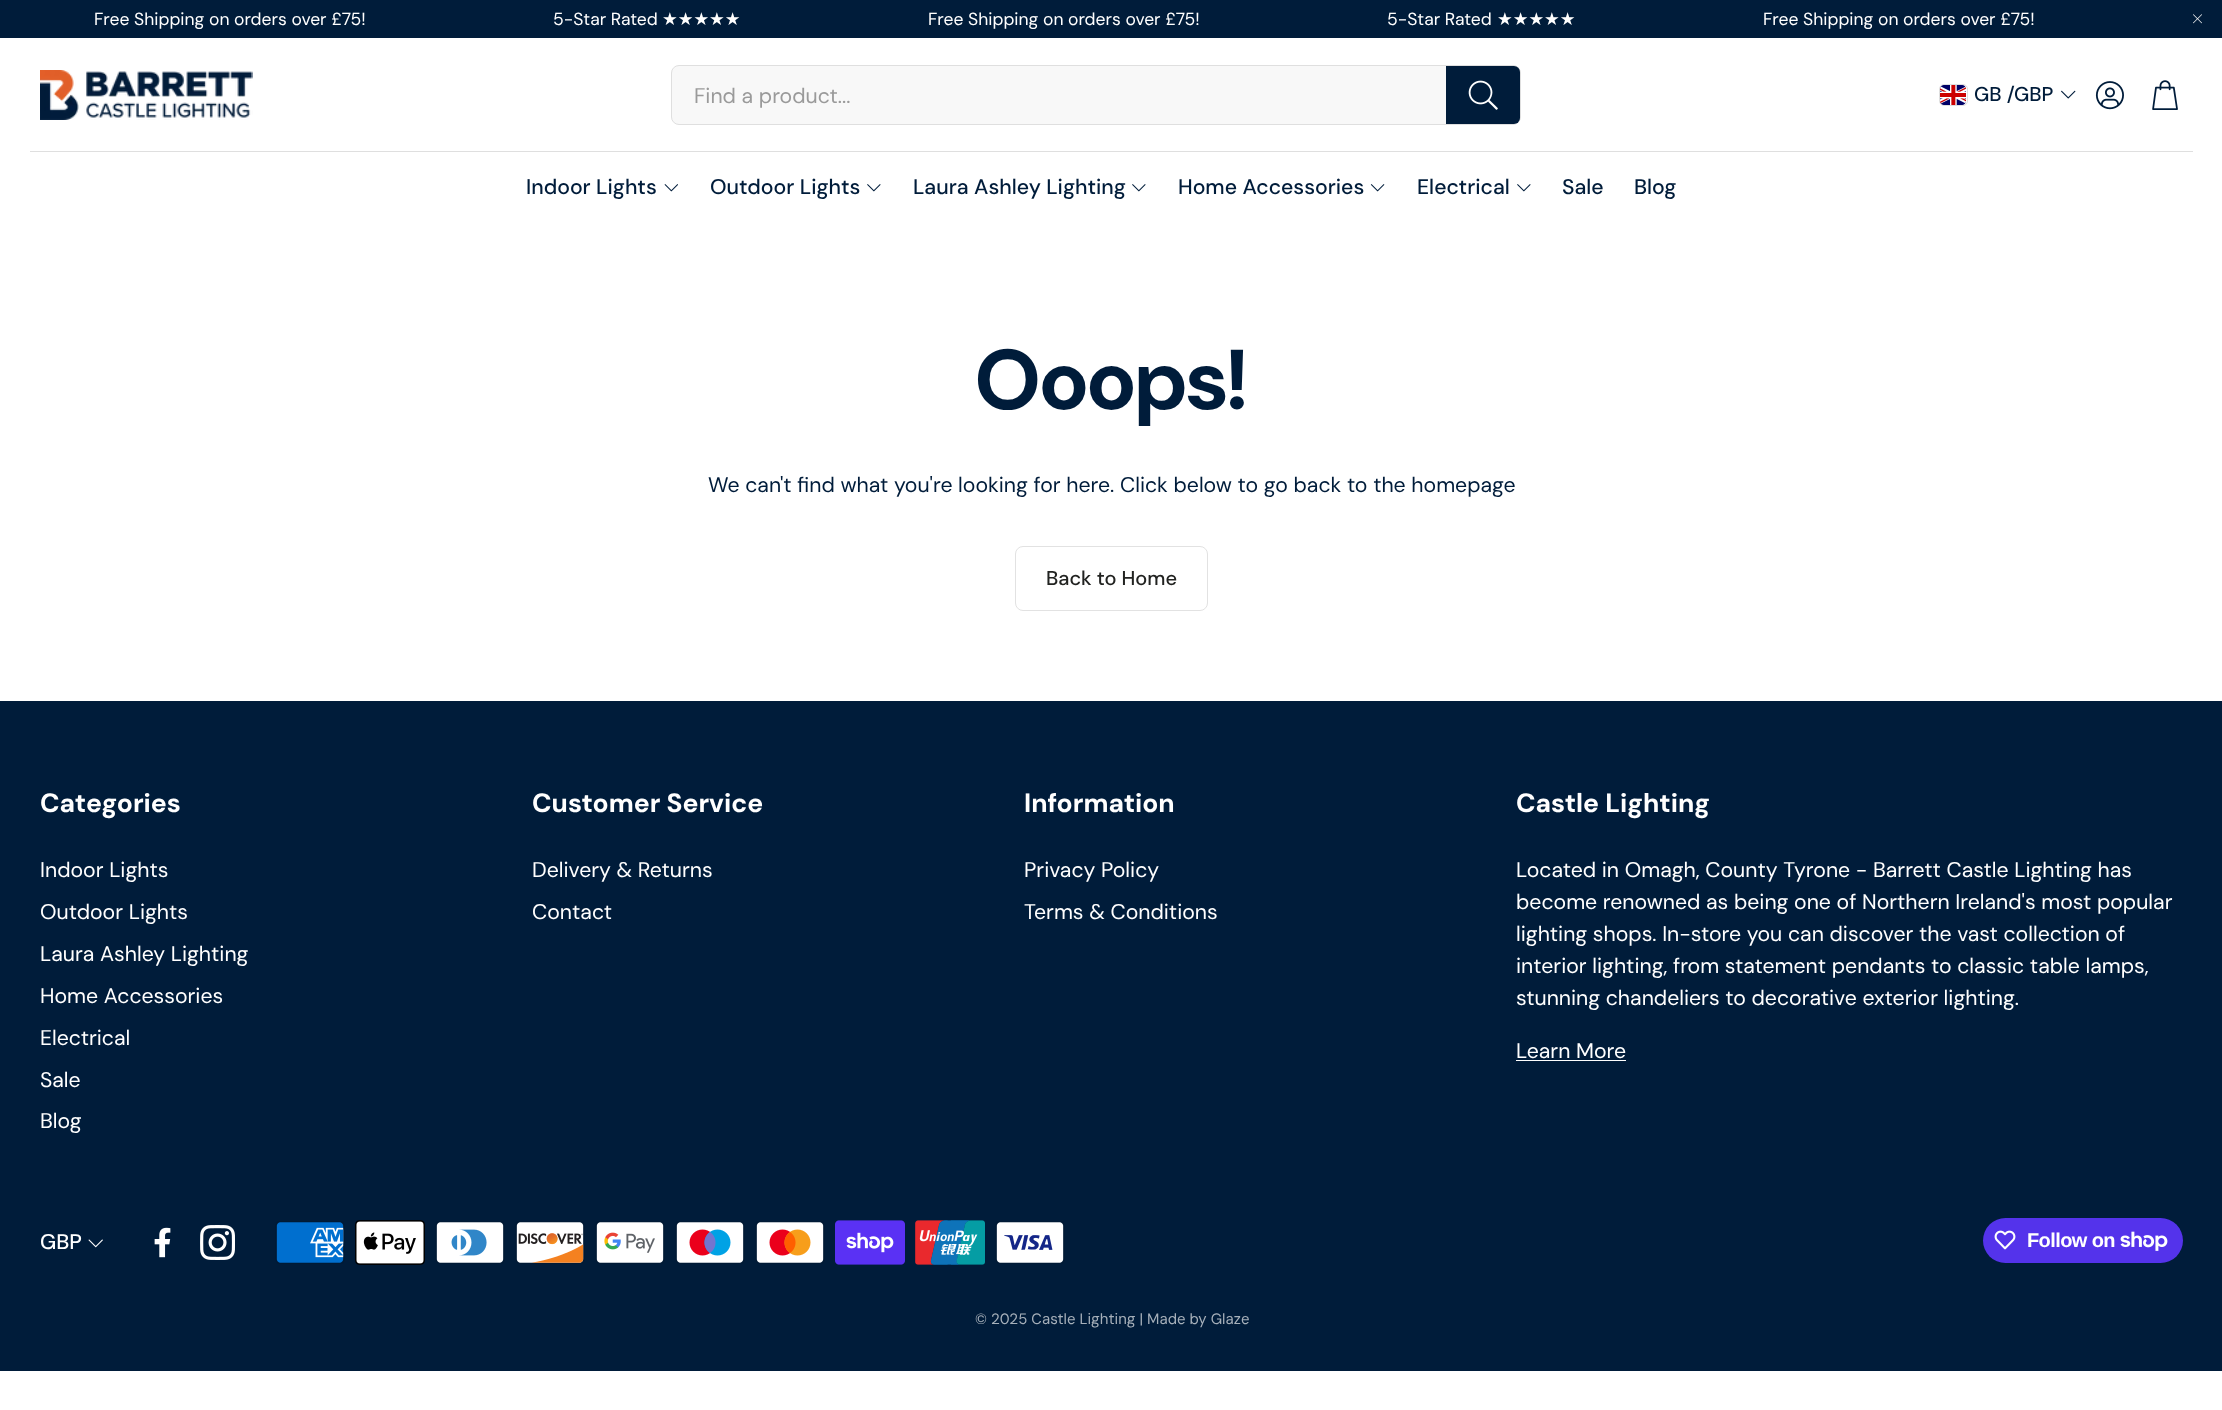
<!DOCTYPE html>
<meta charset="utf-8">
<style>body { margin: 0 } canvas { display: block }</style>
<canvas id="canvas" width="2222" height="1410"></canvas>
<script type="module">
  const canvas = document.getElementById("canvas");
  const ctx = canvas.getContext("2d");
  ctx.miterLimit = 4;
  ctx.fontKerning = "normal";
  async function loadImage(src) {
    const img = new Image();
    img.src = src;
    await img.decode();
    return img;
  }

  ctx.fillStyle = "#ffffff";
  ctx.fillRect(0, 0, 2222, 1410);
  ctx.fillStyle = "#001c3a";
  ctx.fillRect(0, 0, 2222, 38);
  ctx.font = "17.5px 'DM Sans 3'";
  ctx.fillStyle = "#ffffff";
  ctx.fillText("Free Shipping on orders over £75!", 94, 25);
  ctx.fillText("5-Star Rated", 553, 25);
  ctx.font = "17.5px DejaVu Sans";
  ctx.fillText("★★★★★", 662, 25);
  ctx.font = "17.5px 'DM Sans 3'";
  ctx.fillText("Free Shipping on orders over £75!", 928, 25);
  ctx.fillText("5-Star Rated", 1387, 25);
  ctx.font = "17.5px DejaVu Sans";
  ctx.fillText("★★★★★", 1497, 25);
  ctx.font = "17.5px 'DM Sans 3'";
  ctx.fillText("Free Shipping on orders over £75!", 1763, 25);
  ctx.drawImage(await loadImage("img1.png"), 2193, 14, 9, 10);
  ctx.drawImage(await loadImage("img2.png"), 40, 70, 213, 50);
  ctx.fillStyle = "#f8f8f8";
  ctx.beginPath();
  ctx.roundRect(671.5, 65.5, 849, 59, 7.5);
  ctx.fill();
  ctx.strokeStyle = "#dfdfdf";
  ctx.stroke();
  ctx.font = "21.25px DM Sans";
  ctx.fillStyle = "#9a9a9a";
  ctx.fillText("Find a product...", 694, 103);
  ctx.save();
  ctx.beginPath();
  ctx.roundRect(673, 66, 847, 58, 6);
  ctx.clip();
  ctx.fillStyle = "#001c3a";
  ctx.beginPath();
  ctx.roundRect(1446, 65, 75, 60, [0, 8, 8, 0]);
  ctx.fill();
  ctx.restore();
  ctx.drawImage(await loadImage("img3.png"), 1468, 80, 30, 30);
  ctx.beginPath();
  ctx.roundRect(1939.5, 84.5, 28, 21, 4.5);
  ctx.stroke();
  ctx.drawImage(await loadImage("img4.png"), 1940, 85, 26, 20);
  ctx.font = "500 20px DM Sans";
  ctx.fillStyle = "#001c3a";
  ctx.fillText("GB /GBP", 1974, 101);
  ctx.drawImage(await loadImage("img5.png"), 2061, 90, 15, 9);
  ctx.drawImage(await loadImage("img6.png"), 2095, 81, 29, 29);
  ctx.drawImage(await loadImage("img7.png"), 2152, 80, 26, 30);
  ctx.fillStyle = "#dfdfdf";
  ctx.fillRect(30, 151, 2163, 1);
  ctx.font = "500 21.25px 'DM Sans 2'";
  ctx.fillStyle = "#001c3a";
  ctx.fillText("Indoor Lights", 526, 194);
  ctx.drawImage(await loadImage("img8.png"), 664, 184, 14, 8);
  ctx.fillText("Outdoor Lights", 710, 194);
  ctx.drawImage(await loadImage("img9.png"), 867, 184, 14, 8);
  ctx.fillText("Laura Ashley Lighting", 913, 194);
  ctx.drawImage(await loadImage("img9.png"), 1132, 184, 14, 8);
  ctx.fillText("Home Accessories", 1178, 194);
  ctx.drawImage(await loadImage("img10.png"), 1370, 184, 15, 8);
  ctx.fillText("Electrical", 1417, 194);
  ctx.drawImage(await loadImage("img9.png"), 1517, 184, 14, 8);
  ctx.fillText("Sale", 1562, 194);
  ctx.fillText("Blog", 1634, 194);
  ctx.font = "bold 84.5px DM Sans";
  ctx.fillText("Ooops!", 975, 409);
  ctx.font = "21.25px DM Sans";
  ctx.fillText("We can't find what you're looking for here. Click below to go back to the homepage", 708, 492);
  ctx.beginPath();
  ctx.roundRect(1015.5, 546.5, 192, 64, 7.5);
  ctx.strokeStyle = "#e2e2e2";
  ctx.stroke();
  ctx.font = "500 20px DM Sans";
  ctx.fillStyle = "#222321";
  ctx.fillText("Back to Home", 1046, 585);
  ctx.fillStyle = "#001c3a";
  ctx.fillRect(0, 701, 2222, 670);
  ctx.font = "bold 26.5px 'DM Sans 2'";
  ctx.fillStyle = "#ffffff";
  ctx.fillText("Categories", 40, 812);
  ctx.font = "21.25px DM Sans";
  ctx.fillText("Indoor Lights", 40, 877);
  ctx.fillText("Outdoor Lights", 40, 919);
  ctx.fillText("Laura Ashley Lighting", 40, 961);
  ctx.fillText("Home Accessories", 40, 1003);
  ctx.fillText("Electrical", 40, 1045);
  ctx.fillText("Sale", 40, 1087);
  ctx.fillText("Blog", 40, 1128);
  ctx.font = "bold 26.5px 'DM Sans 2'";
  ctx.fillText("Customer Service", 532, 812);
  ctx.font = "21.25px DM Sans";
  ctx.fillText("Delivery & Returns", 532, 877);
  ctx.fillText("Contact", 532, 919);
  ctx.font = "bold 26.5px 'DM Sans 2'";
  ctx.fillText("Information", 1024, 812);
  ctx.font = "21.25px DM Sans";
  ctx.fillText("Privacy Policy", 1024, 877);
  ctx.fillText("Terms & Conditions", 1024, 919);
  ctx.font = "bold 26.5px 'DM Sans 2'";
  ctx.fillText("Castle Lighting", 1516, 812);
  ctx.font = "21.25px DM Sans";
  ctx.fillText("Located in Omagh, County Tyrone - Barrett Castle Lighting has", 1516, 877);
  ctx.fillText("become renowned as being one of Northern Ireland's most popular", 1516, 909);
  ctx.fillText("lighting shops. In-store you can discover the vast collection of", 1516, 941);
  ctx.fillText("interior lighting, from statement pendants to classic table lamps,", 1516, 973);
  ctx.fillText("stunning chandeliers to decorative exterior lighting.", 1516, 1005);
  ctx.fillText("Learn More", 1516, 1058);
  ctx.fillRect(1516, 1060, 110, 1);
  ctx.font = "500 21.25px 'DM Sans 2'";
  ctx.fillText("GBP", 40, 1249);
  ctx.drawImage(await loadImage("img11.png"), 88, 1239, 15, 9);
  ctx.drawImage(await loadImage("img12.png"), 154, 1227, 17, 31);
  ctx.drawImage(await loadImage("img13.png"), 200, 1225, 35, 35);
  ctx.drawImage(await loadImage("img14.png"), 275, 1221, 70, 43);
  ctx.drawImage(await loadImage("img15.png"), 355, 1220, 70, 45);
  ctx.drawImage(await loadImage("img16.png"), 435, 1221, 70, 43);
  ctx.drawImage(await loadImage("img17.png"), 515, 1221, 70, 43);
  ctx.drawImage(await loadImage("img18.png"), 595, 1221, 70, 43);
  ctx.drawImage(await loadImage("img19.png"), 675, 1221, 70, 43);
  ctx.drawImage(await loadImage("img20.png"), 755, 1221, 70, 43);
  ctx.drawImage(await loadImage("img21.png"), 835, 1220, 70, 45);
  ctx.drawImage(await loadImage("img22.png"), 915, 1220, 70, 45);
  ctx.drawImage(await loadImage("img23.png"), 995, 1221, 70, 43);
  ctx.fillStyle = "#5433eb";
  ctx.beginPath();
  ctx.roundRect(1983, 1218, 200, 45, 22.5);
  ctx.fill();
  ctx.drawImage(await loadImage("img24.png"), 1994, 1230, 22, 20);
  ctx.letterSpacing = "-0.6px";
  ctx.font = "bold 20px Liberation Sans";
  ctx.fillStyle = "#ffffff";
  ctx.fillText("Follow on", 2027, 1247);
  ctx.drawImage(await loadImage("img25.png"), 2120, 1231, 48, 20);
  ctx.letterSpacing = "0px";
  ctx.font = "15px 'DM Sans 2'";
  ctx.fillStyle = "#a6b0ba";
  ctx.fillText("© 2025 Castle Lighting | Made by Glaze", 975, 1324);
</script>
